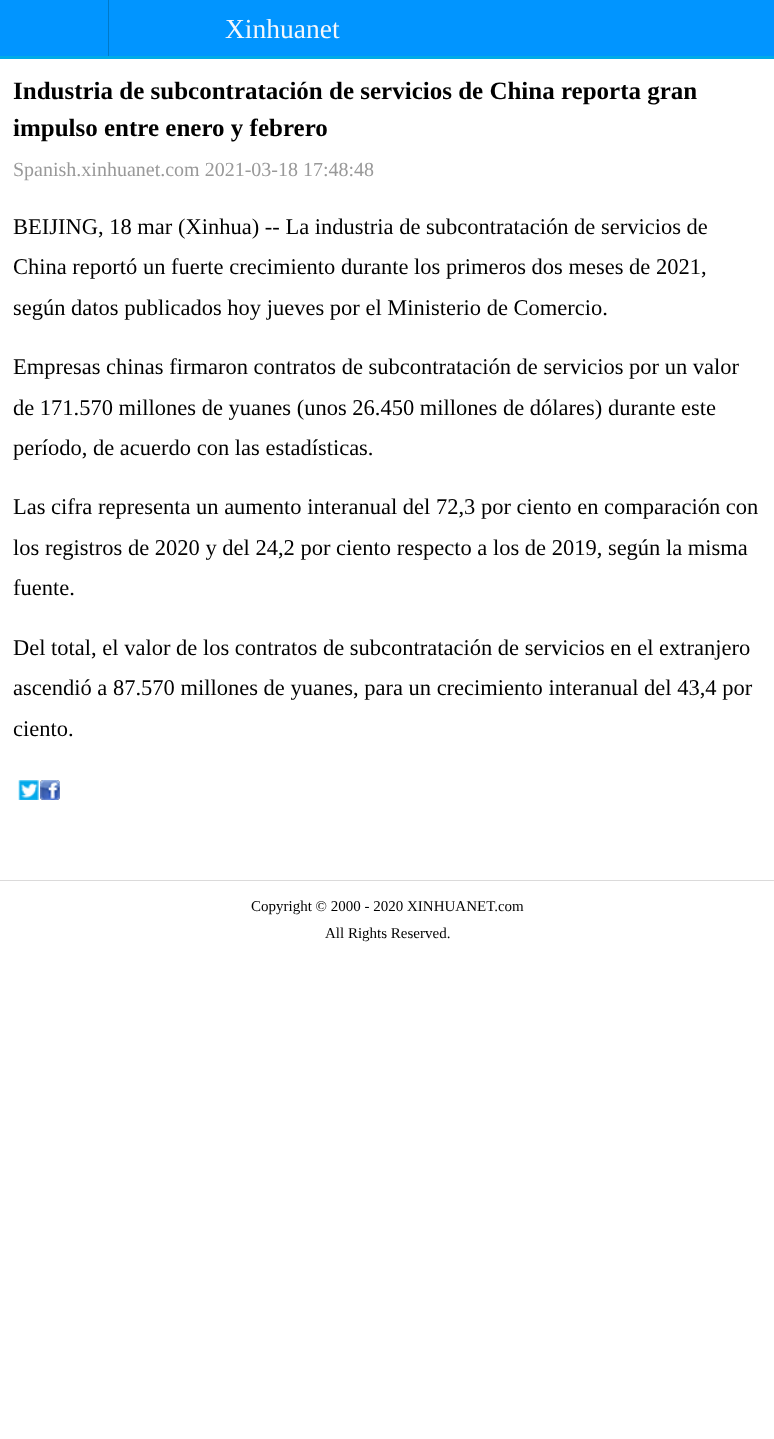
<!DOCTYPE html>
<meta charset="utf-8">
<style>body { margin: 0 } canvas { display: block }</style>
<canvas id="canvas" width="774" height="1439"></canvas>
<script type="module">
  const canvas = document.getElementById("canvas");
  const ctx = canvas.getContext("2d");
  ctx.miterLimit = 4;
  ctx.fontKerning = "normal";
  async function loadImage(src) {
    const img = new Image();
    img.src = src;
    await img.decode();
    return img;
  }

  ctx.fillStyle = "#ffffff";
  ctx.fillRect(0, 0, 774, 1439);
  ctx.fillStyle = "#0195ff";
  ctx.fillRect(0, 0, 774, 56);
  ctx.fillStyle = "#00abe7";
  ctx.fillRect(0, 56, 774, 3);
  ctx.fillStyle = "#0079c8";
  ctx.fillRect(108, 0, 1, 56);
  ctx.font = "27.5px Liberation Serif";
  ctx.fillStyle = "#f4f7fc";
  ctx.fillText("Xinhuanet", 225, 38);
  ctx.font = "bold 25px Liberation Serif";
  ctx.fillStyle = "#000000";
  ctx.fillText("Industria de subcontratación de servicios de China reporta gran", 13, 99);
  ctx.fillText("impulso entre enero y febrero", 13, 136);
  ctx.font = "20px Liberation Serif";
  ctx.fillStyle = "#999999";
  ctx.fillText("Spanish.xinhuanet.com 2021-03-18 17:48:48", 13, 176);
  ctx.font = "22.5px Liberation Serif";
  ctx.fillStyle = "#000000";
  ctx.fillText("BEIJING, 18 mar (Xinhua) -- La industria de subcontratación de servicios de", 13, 234);
  ctx.fillText("China reportó un fuerte crecimiento durante los primeros dos meses de 2021,", 13, 274);
  ctx.fillText("según datos publicados hoy jueves por el Ministerio de Comercio.", 13, 315);
  ctx.fillText("Empresas chinas firmaron contratos de subcontratación de servicios por un valor", 13, 374);
  ctx.fillText("de 171.570 millones de yuanes (unos 26.450 millones de dólares) durante este", 13, 415);
  ctx.fillText("período, de acuerdo con las estadísticas.", 13, 455);
  ctx.fillText("Las cifra representa un aumento interanual del 72,3 por ciento en comparación con", 13, 514);
  ctx.fillText("los registros de 2020 y del 24,2 por ciento respecto a los de 2019, según la misma", 13, 555);
  ctx.fillText("fuente.", 13, 595);
  ctx.fillText("Del total, el valor de los contratos de subcontratación de servicios en el extranjero", 13, 655);
  ctx.fillText("ascendió a 87.570 millones de yuanes, para un crecimiento interanual del 43,4 por", 13, 695);
  ctx.fillText("ciento.", 13, 736);
  ctx.drawImage(await loadImage("img1.png"), 18, 780, 21, 20);
  ctx.drawImage(await loadImage("img2.png"), 40, 780, 20, 20);
  ctx.fillStyle = "#dbdada";
  ctx.fillRect(0, 880, 774, 1);
  ctx.font = "15px Liberation Serif";
  ctx.fillStyle = "#000000";
  ctx.fillText("Copyright © 2000 - 2020 XINHUANET.com", 251, 911);
  ctx.fillText("All Rights Reserved.", 325, 938);
</script>
